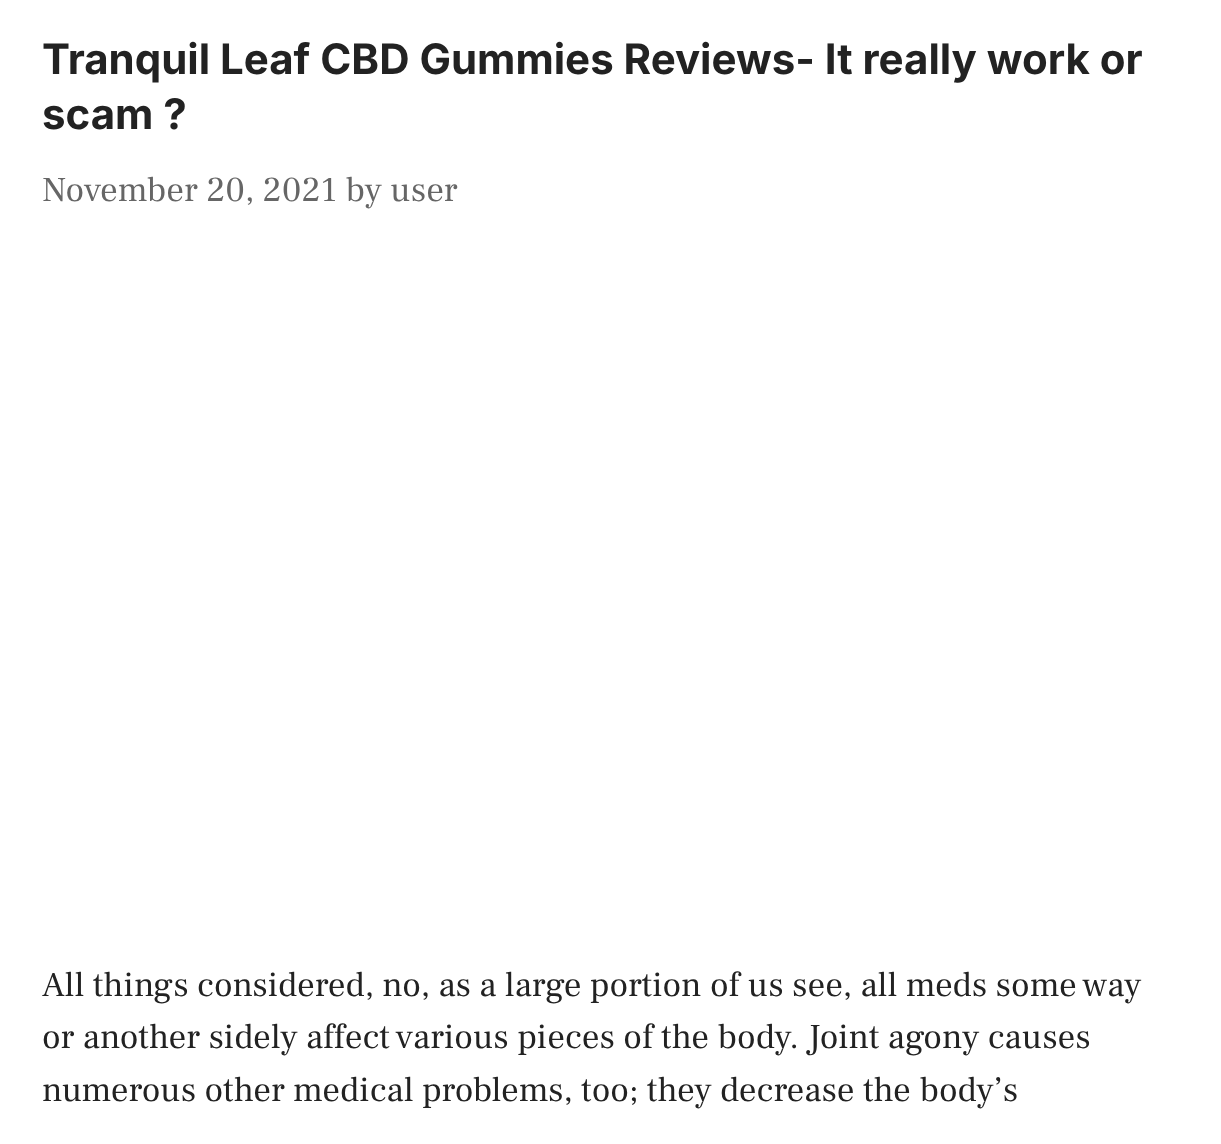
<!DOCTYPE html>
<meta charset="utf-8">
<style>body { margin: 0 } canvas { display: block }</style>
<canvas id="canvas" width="1221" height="1144"></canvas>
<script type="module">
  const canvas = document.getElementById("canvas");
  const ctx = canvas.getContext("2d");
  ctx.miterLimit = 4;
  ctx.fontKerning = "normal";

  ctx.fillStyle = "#ffffff";
  ctx.fillRect(0, 0, 1221, 1144);
  ctx.font = "bold 42px Inter";
  ctx.fillStyle = "#222222";
  ctx.fillText("Tranquil Leaf CBD Gummies Reviews- It really work or", 42, 74);
  ctx.fillText("scam ?", 42, 129);
  ctx.font = "35px Frank Ruhl Libre";
  ctx.fillStyle = "#666666";
  ctx.fillText("November 20, 2021 by user", 42, 201);
  ctx.fillStyle = "#222222";
  ctx.fillText("All things considered, no, as a large portion of us see, all meds some way", 42, 996);
  ctx.fillText("or another sidely affect various pieces of the body. Joint agony causes", 42, 1048);
  ctx.fillText("numerous other medical problems, too; they decrease the body’s", 42, 1101);
</script>
